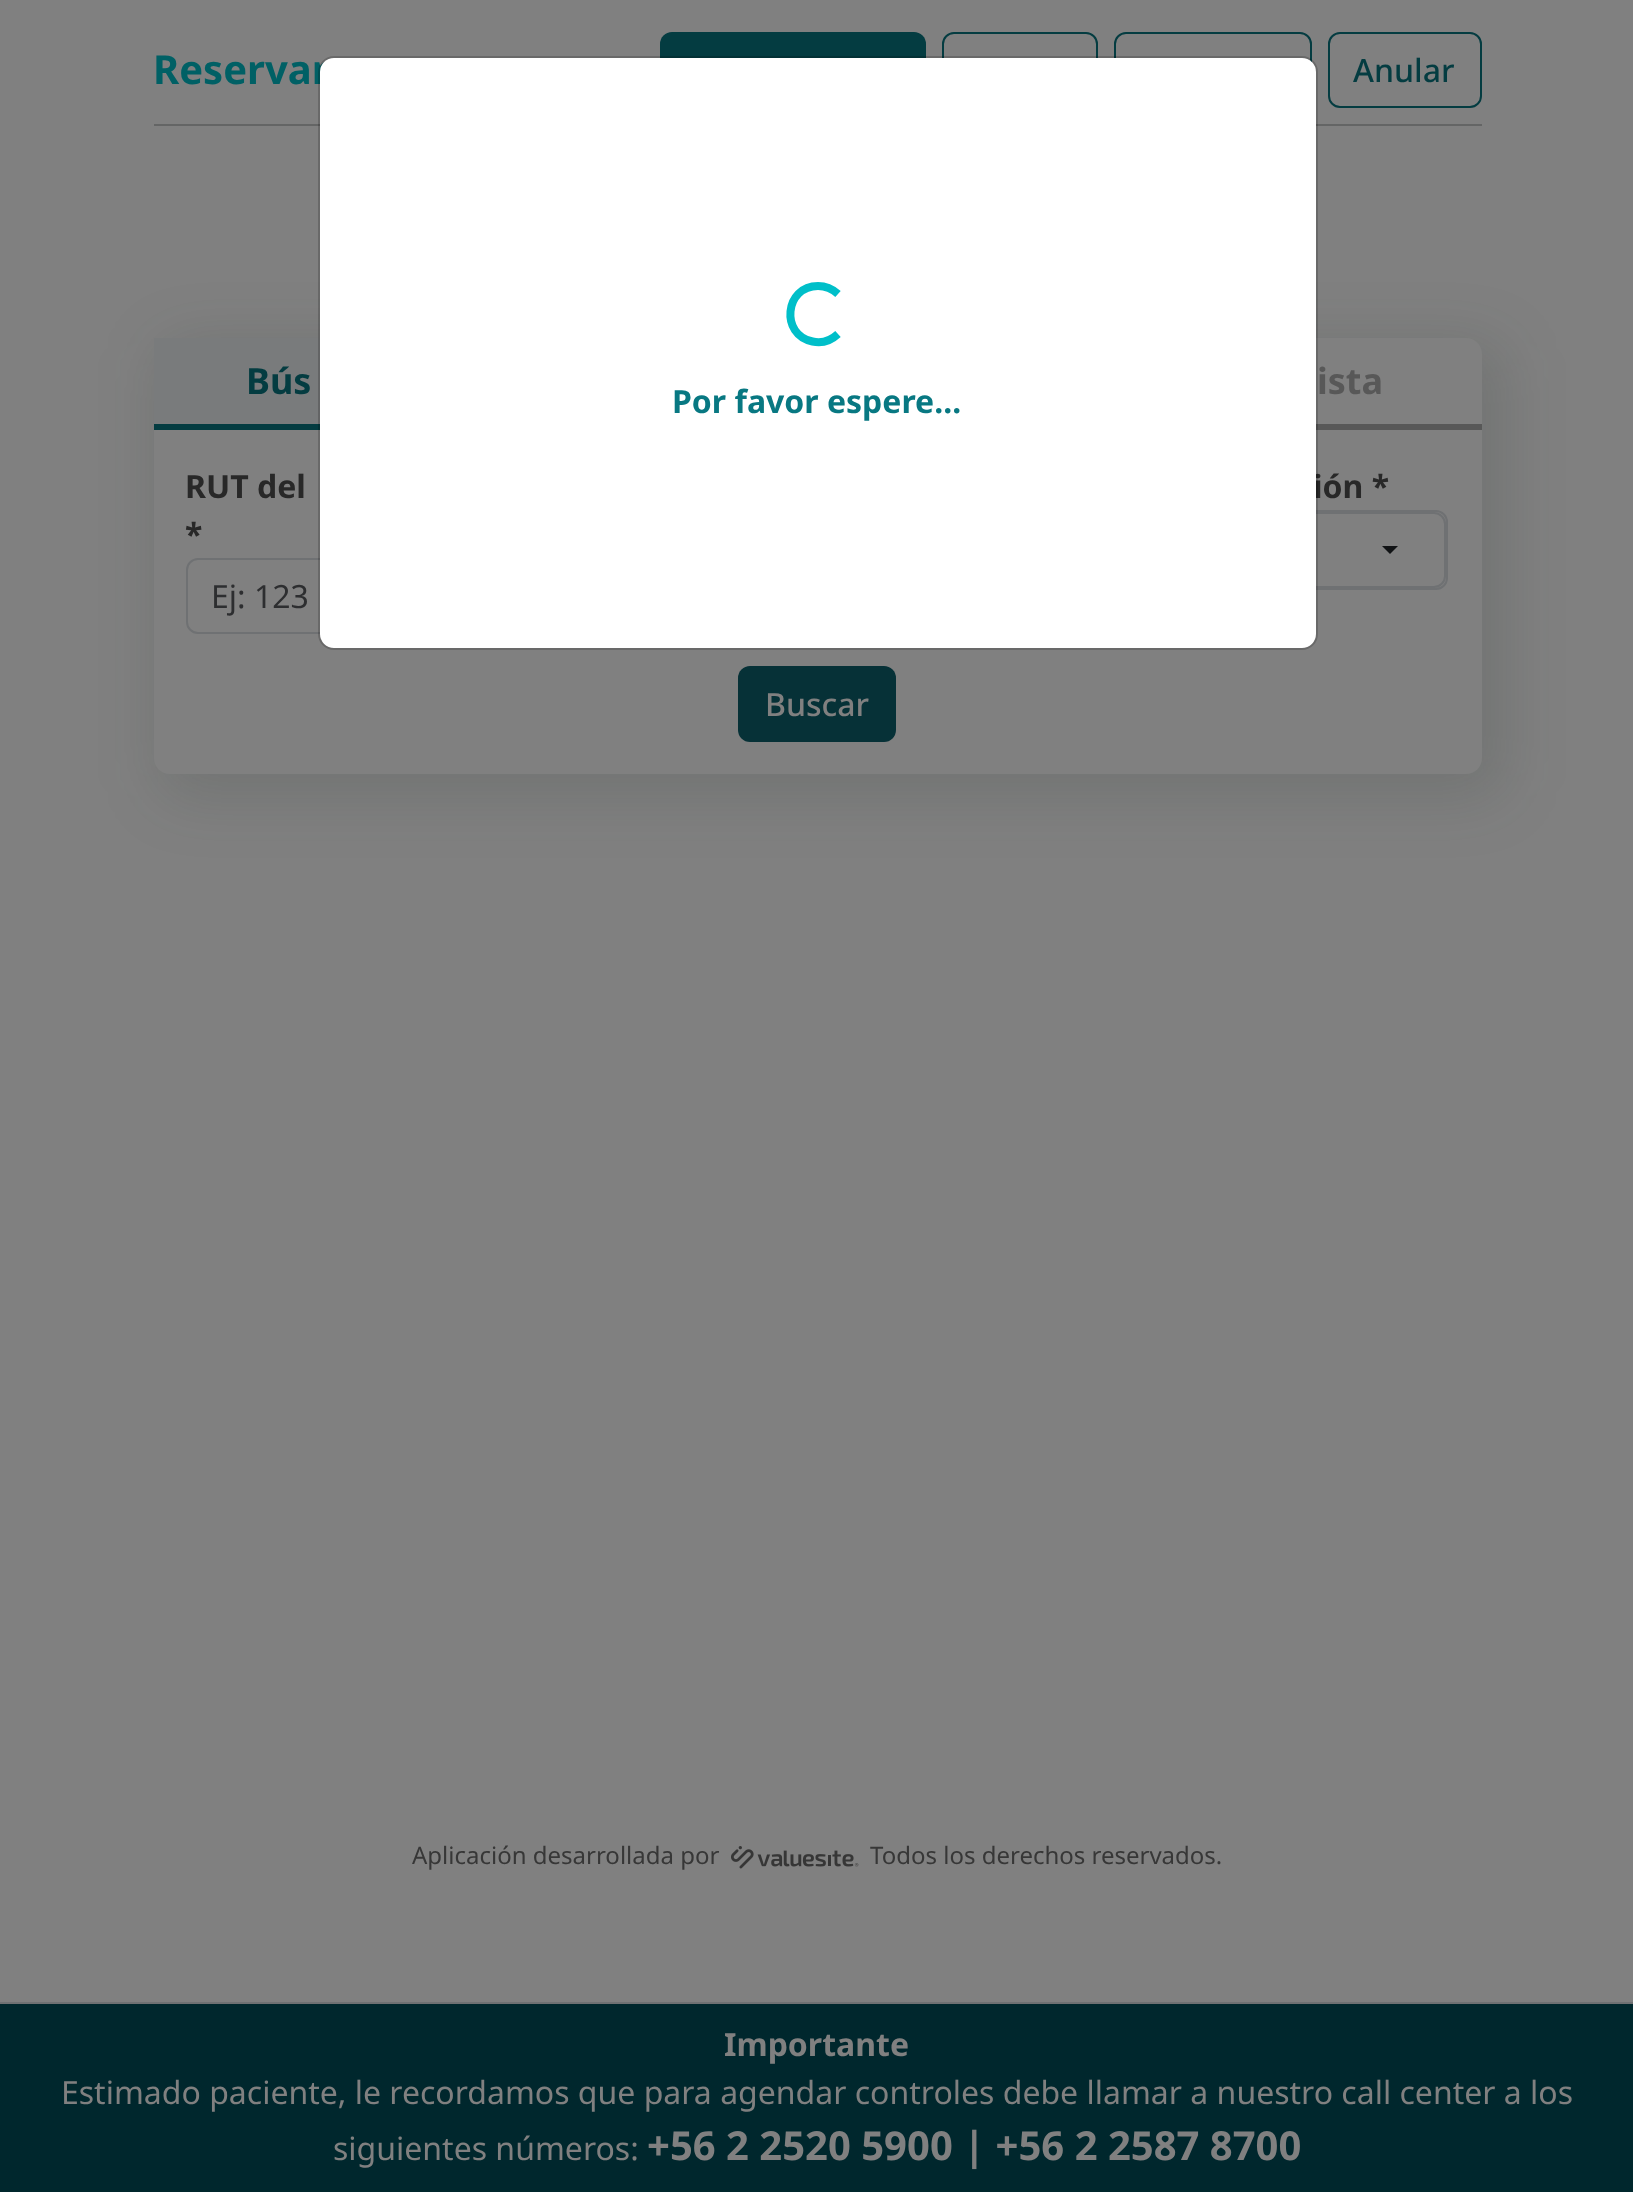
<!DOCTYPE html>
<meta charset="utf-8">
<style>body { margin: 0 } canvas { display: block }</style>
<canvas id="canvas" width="1633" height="2192"></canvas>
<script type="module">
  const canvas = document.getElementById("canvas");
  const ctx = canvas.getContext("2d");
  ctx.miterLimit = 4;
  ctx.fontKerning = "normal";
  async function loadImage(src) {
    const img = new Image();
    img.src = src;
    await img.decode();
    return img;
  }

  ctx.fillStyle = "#808080";
  ctx.fillRect(0, 0, 1633, 2192);
  ctx.font = "bold 40px Noto Sans";
  ctx.fillStyle = "#006065";
  ctx.fillText("Reservar", 153, 84);
  ctx.fillStyle = "#043c41";
  ctx.beginPath();
  ctx.roundRect(660, 32, 266, 76, 12);
  ctx.fill();
  ctx.beginPath();
  ctx.roundRect(943, 33, 154, 74, 11);
  ctx.strokeStyle = "#043c41";
  ctx.lineWidth = 2;
  ctx.stroke();
  ctx.beginPath();
  ctx.roundRect(1115, 33, 196, 74, 11);
  ctx.stroke();
  ctx.beginPath();
  ctx.roundRect(1329, 33, 152, 74, 11);
  ctx.stroke();
  ctx.font = "500 32px Noto Sans";
  ctx.fillText("Anular", 1353, 82);
  ctx.fillStyle = "#646565";
  ctx.fillRect(154, 124, 1328, 2);
  ctx.save();
  ctx.beginPath();
  ctx.moveTo(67, 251);
  ctx.lineTo(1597, 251);
  ctx.lineTo(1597, 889);
  ctx.lineTo(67, 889);
  ctx.closePath();
  ctx.moveTo(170, 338);
  ctx.lineTo(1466, 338);
  ctx.bezierCurveTo(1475, 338, 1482, 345, 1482, 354);
  ctx.lineTo(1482, 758);
  ctx.bezierCurveTo(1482, 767, 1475, 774, 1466, 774);
  ctx.lineTo(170, 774);
  ctx.bezierCurveTo(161, 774, 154, 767, 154, 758);
  ctx.lineTo(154, 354);
  ctx.bezierCurveTo(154, 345, 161, 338, 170, 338);
  ctx.closePath();
  ctx.clip("evenodd");
  ctx.fillStyle = "rgba(33, 48, 42, 0.15)";
  ctx.filter = "blur(30px)";
  ctx.beginPath();
  ctx.roundRect(158, 342, 1348, 456, 26);
  ctx.fill();
  ctx.filter = "none";
  ctx.restore();
  ctx.fillStyle = "#797b7c";
  ctx.fillRect(154, 338, 166, 86);
  ctx.fillStyle = "#043c41";
  ctx.fillRect(154, 424, 166, 6);
  ctx.font = "bold 36px Noto Sans";
  ctx.fillText("Bús", 246, 394);
  ctx.fillStyle = "#585858";
  ctx.fillRect(1316, 424, 166, 6);
  ctx.fillText("ista", 1317, 394);
  ctx.font = "bold 32px Noto Sans";
  ctx.fillStyle = "#282828";
  ctx.fillText("RUT del", 185, 498);
  ctx.fillText("*", 185, 546);
  ctx.beginPath();
  ctx.roundRect(187, 559, 278, 74, 11);
  ctx.strokeStyle = "#6f7173";
  ctx.stroke();
  ctx.font = "32px Noto Sans";
  ctx.fillStyle = "#2d2e30";
  ctx.fillText("Ej: 123", 211, 608);
  ctx.font = "bold 32px Noto Sans";
  ctx.fillStyle = "#282828";
  ctx.fillText("ión *", 1313, 498);
  ctx.beginPath();
  ctx.roundRect(1061, 511, 386, 78, 11);
  ctx.stroke();
  ctx.beginPath();
  ctx.roundRect(1063, 513, 382, 74, 11);
  ctx.stroke();
  ctx.fillStyle = "#111315";
  ctx.beginPath();
  ctx.moveTo(1382, 546);
  ctx.lineTo(1398, 546);
  ctx.lineTo(1390, 554);
  ctx.closePath();
  ctx.fill();
  ctx.fillStyle = "#063137";
  ctx.beginPath();
  ctx.roundRect(738, 666, 158, 76, 12);
  ctx.fill();
  ctx.font = "500 32px Noto Sans";
  ctx.fillStyle = "#808080";
  ctx.fillText("Buscar", 765, 716);
  ctx.fillStyle = "#ffffff";
  ctx.beginPath();
  ctx.roundRect(320, 58, 996, 590, 14);
  ctx.fill();
  ctx.beginPath();
  ctx.roundRect(319, 57, 998, 592, 15);
  ctx.strokeStyle = "rgba(0, 0, 0, 0.18)";
  ctx.stroke();
  ctx.beginPath();
  ctx.moveTo(838, 334);
  ctx.bezierCurveTo(831, 340.5, 821.5, 343.5, 812.5, 341.5);
  ctx.bezierCurveTo(780, 335, 784.5, 286, 818, 286);
  ctx.bezierCurveTo(825.5, 286, 832.5, 289, 838, 294);
  ctx.strokeStyle = "#00bfc9";
  ctx.lineWidth = 8;
  ctx.stroke();
  ctx.font = "bold 32px Noto Sans";
  ctx.fillStyle = "#087882";
  ctx.fillText("Por favor espere...", 672, 413);
  ctx.font = "24px Noto Sans";
  ctx.fillStyle = "#373737";
  ctx.fillText("Aplicación desarrollada por", 412, 1864);
  ctx.drawImage(await loadImage("img1.png"), 731, 1846, 128, 23);
  ctx.fillText("Todos los derechos reservados.", 870, 1864);
  ctx.fillStyle = "#00272d";
  ctx.fillRect(0, 2004, 1633, 188);
  ctx.fillStyle = "#6f7173";
  ctx.fillRect(0, 2002, 1633, 2);
  ctx.font = "bold 32px Noto Sans";
  ctx.fillStyle = "#808080";
  ctx.fillText("Importante", 724, 2056);
  ctx.font = "32px Noto Sans";
  ctx.fillText("Estimado paciente, le recordamos que para agendar controles debe llamar a nuestro call center a los", 61, 2104);
  ctx.fillText("siguientes números:", 333, 2160);
  ctx.font = "bold 40px Noto Sans";
  ctx.fillText("+56 2 2520 5900 | +56 2 2587 8700", 647, 2160);
</script>
